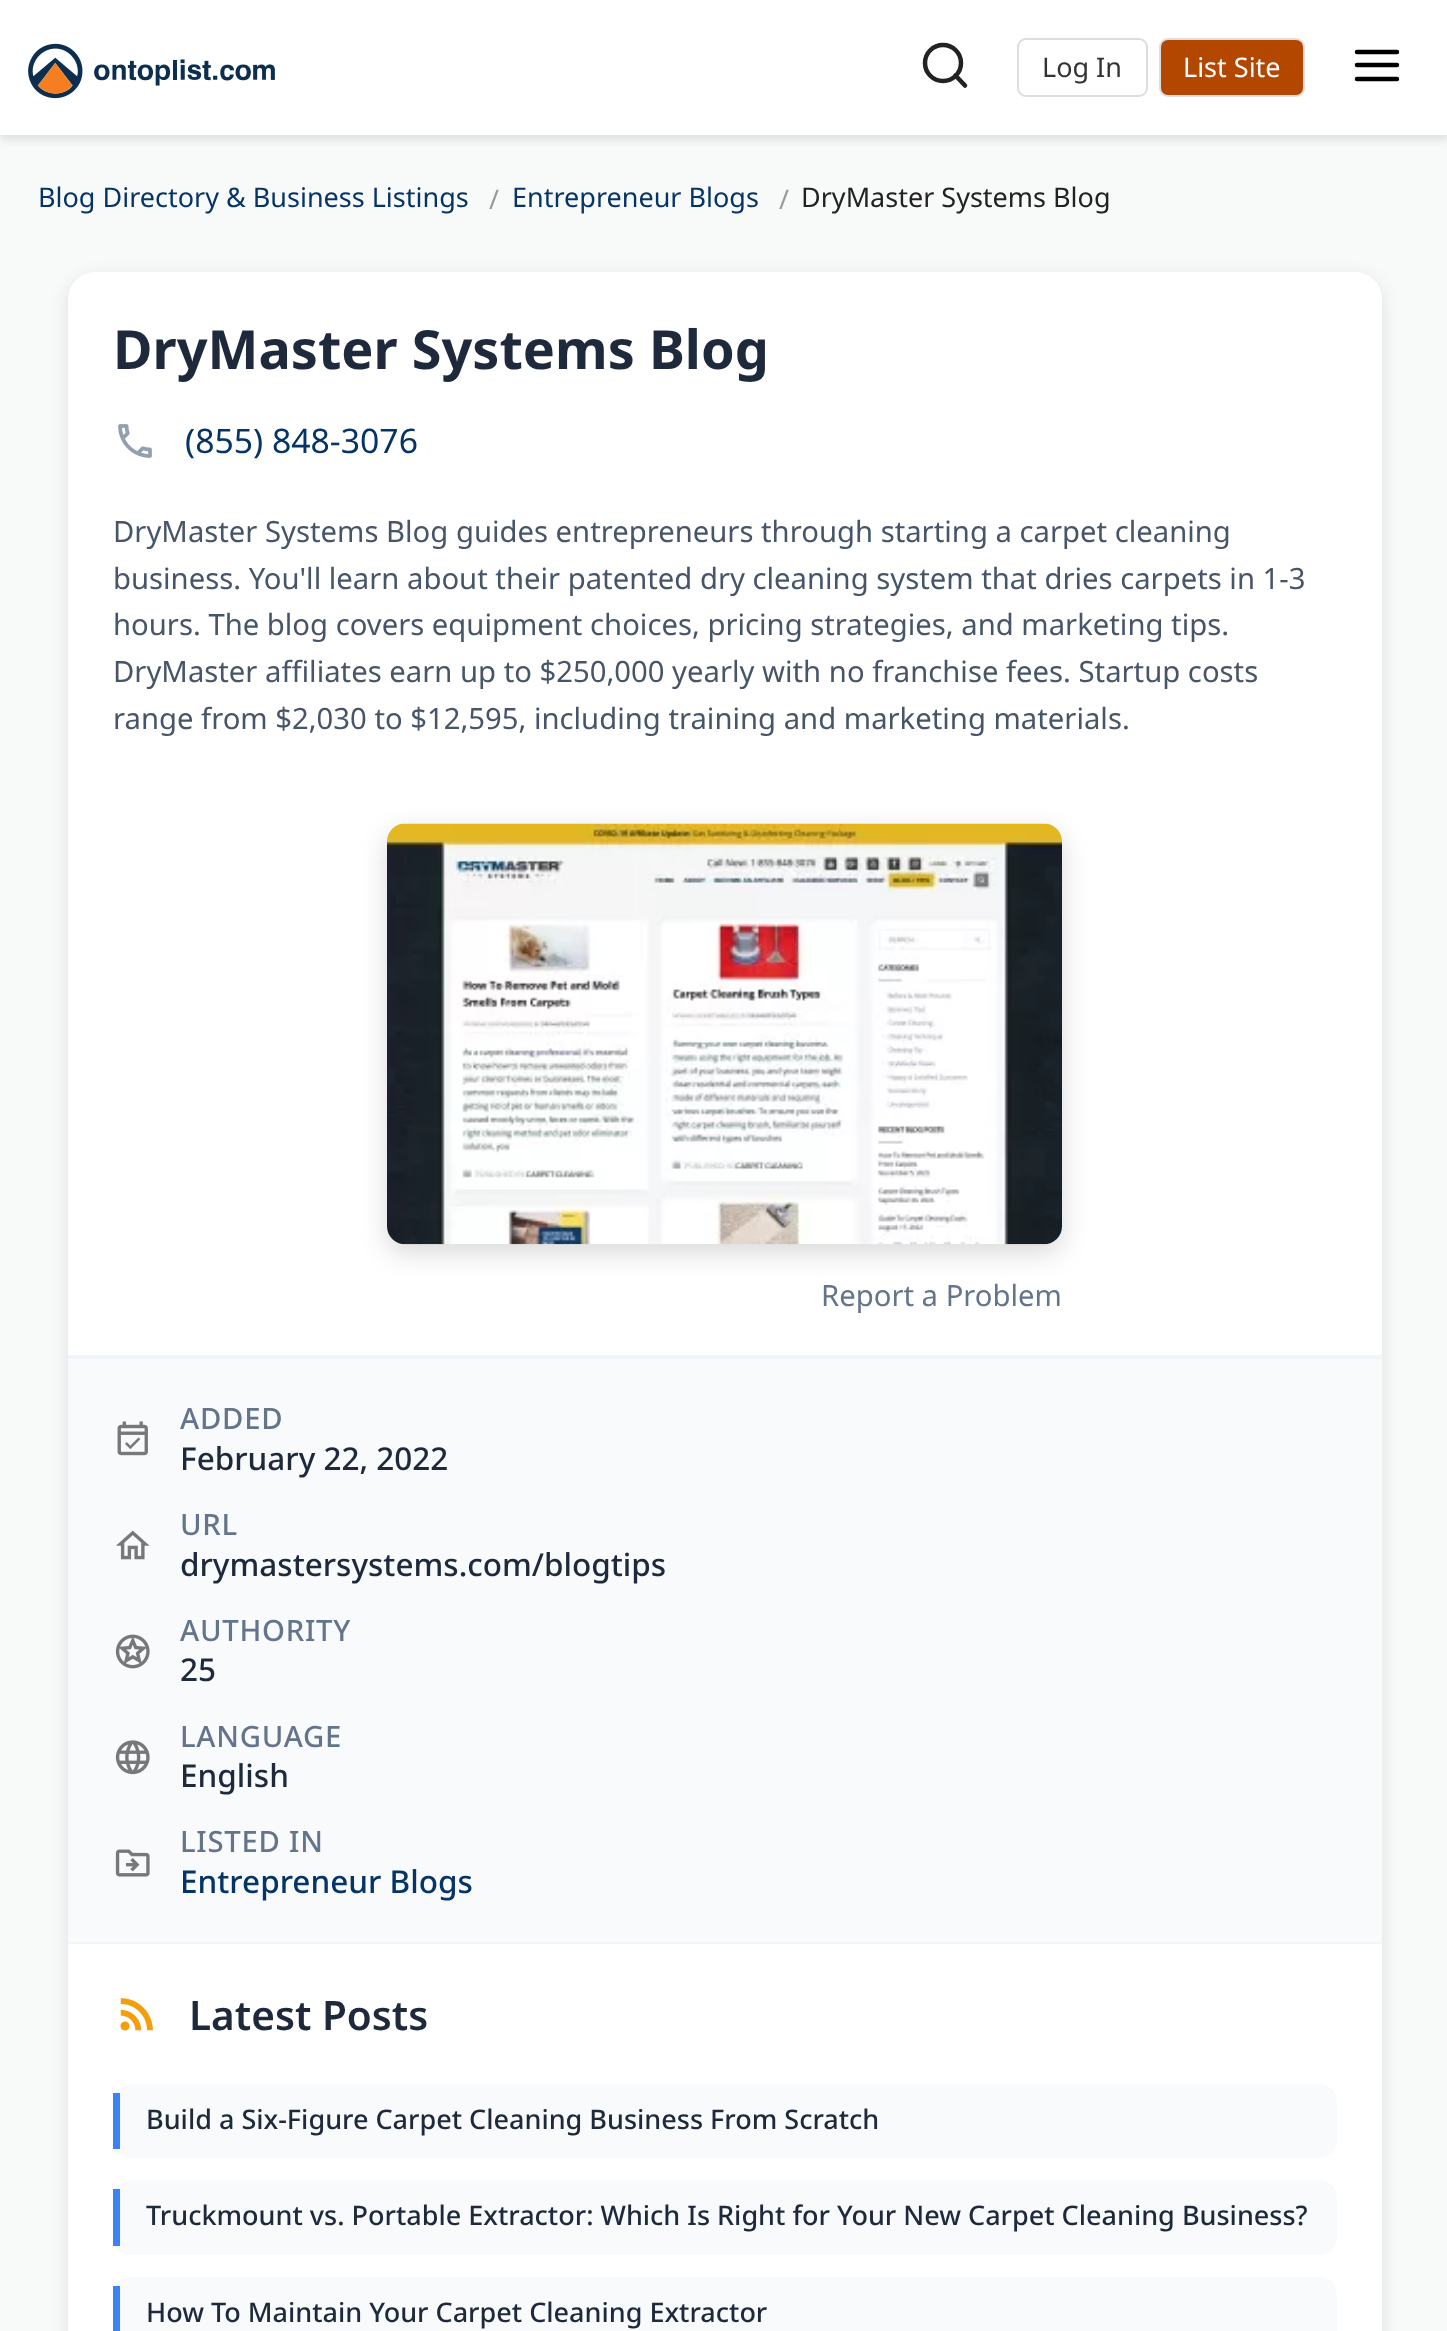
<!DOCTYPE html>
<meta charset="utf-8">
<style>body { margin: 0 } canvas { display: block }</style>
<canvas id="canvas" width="1447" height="2331"></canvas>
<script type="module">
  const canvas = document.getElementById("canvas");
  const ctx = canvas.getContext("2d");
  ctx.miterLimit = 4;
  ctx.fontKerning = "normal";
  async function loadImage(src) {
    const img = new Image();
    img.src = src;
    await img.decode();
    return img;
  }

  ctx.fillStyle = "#f8f9f9";
  ctx.fillRect(0, 0, 1447, 2331);
  ctx.fillStyle = "rgba(0, 0, 0, 0.1)";
  ctx.filter = "blur(4.5px)";
  ctx.beginPath();
  ctx.rect(0, 5, 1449, 135);
  ctx.fill();
  ctx.filter = "none";
  ctx.fillStyle = "#ffffff";
  ctx.fillRect(0, 0, 1447, 135);
  ctx.drawImage(await loadImage("img1.png"), 28, 43, 247, 56);
  ctx.beginPath();
  ctx.arc(943, 63, 18, 0, Math.PI * 2);
  ctx.strokeStyle = "#222222";
  ctx.lineWidth = 4.5;
  ctx.stroke();
  ctx.beginPath();
  ctx.moveTo(965, 85.5);
  ctx.lineTo(955.5, 75.5);
  ctx.lineCap = "round";
  ctx.lineJoin = "round";
  ctx.stroke();
  ctx.beginPath();
  ctx.roundRect(1018, 39, 129, 57, 8);
  ctx.strokeStyle = "#dddddd";
  ctx.lineWidth = 2;
  ctx.lineJoin = "miter";
  ctx.stroke();
  ctx.font = "27px Noto Sans";
  ctx.fillStyle = "#333333";
  ctx.fillText("Log In", 1042, 77);
  ctx.fillStyle = "#b34700";
  ctx.beginPath();
  ctx.roundRect(1160, 39, 144, 57, 8);
  ctx.fill();
  ctx.stroke();
  ctx.fillStyle = "#ffffff";
  ctx.fillText("List Site", 1183, 77);
  ctx.beginPath();
  ctx.moveTo(1357, 65);
  ctx.lineTo(1397, 65);
  ctx.moveTo(1357, 52);
  ctx.lineTo(1397, 52);
  ctx.moveTo(1357, 79);
  ctx.lineTo(1397, 79);
  ctx.strokeStyle = "#000000";
  ctx.lineWidth = 4.5;
  ctx.lineJoin = "round";
  ctx.stroke();
  ctx.fillStyle = "#063467";
  ctx.fillText("Blog Directory & Business Listings", 38, 207);
  ctx.fillStyle = "#999999";
  ctx.fillText("/", 489, 209);
  ctx.fillStyle = "#063467";
  ctx.fillText("Entrepreneur Blogs", 512, 207);
  ctx.fillStyle = "#999999";
  ctx.fillText("/", 779, 209);
  ctx.fillStyle = "#222222";
  ctx.fillText("DryMaster Systems Blog", 801, 207);
  ctx.fillStyle = "rgba(0, 0, 0, 0.1)";
  ctx.filter = "blur(9px)";
  ctx.beginPath();
  ctx.roundRect(68, 277, 1314, 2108, 27);
  ctx.fill();
  ctx.filter = "none";
  ctx.fillStyle = "#ffffff";
  ctx.beginPath();
  ctx.roundRect(68, 272, 1314, 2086, 27);
  ctx.fill();
  ctx.fillStyle = "#f1f5f9";
  ctx.fillRect(68, 1355, 1314, 4);
  ctx.font = "bold 54px Noto Sans";
  ctx.fillStyle = "#1e293b";
  ctx.fillText("DryMaster Systems Blog", 113, 369);
  ctx.drawImage(await loadImage("img2.png"), 118, 424, 34, 34);
  ctx.font = "33.75px Noto Sans";
  ctx.fillStyle = "#063467";
  ctx.fillText("(855) 848-3076", 185, 453);
  ctx.font = "29.25px Noto Sans";
  ctx.fillStyle = "#475569";
  ctx.fillText("DryMaster Systems Blog guides entrepreneurs through starting a carpet cleaning", 113, 542);
  ctx.fillText("business. You'll learn about their patented dry cleaning system that dries carpets in 1-3", 113, 589);
  ctx.fillText("hours. The blog covers equipment choices, pricing strategies, and marketing tips.", 113, 635);
  ctx.fillText("DryMaster affiliates earn up to $250,000 yearly with no franchise fees. Startup costs", 113, 682);
  ctx.fillText("range from $2,030 to $12,595, including training and marketing materials.", 113, 729);
  ctx.fillStyle = "rgba(0, 0, 0, 0.15)";
  ctx.filter = "blur(13.5px)";
  ctx.beginPath();
  ctx.roundRect(387, 833, 675, 420, 18);
  ctx.fill();
  ctx.filter = "none";
  ctx.drawImage(await loadImage("img3.png"), 387, 823, 675, 422);
  ctx.fillStyle = "#64748b";
  ctx.fillText("Report a Problem", 821, 1306);
  ctx.fillStyle = "#f8fafc";
  ctx.fillRect(68, 1359, 1314, 583);
  ctx.drawImage(await loadImage("img4.png"), 117, 1421, 31, 35);
  ctx.letterSpacing = "0.75px";
  ctx.font = "500 29.25px Noto Sans";
  ctx.fillStyle = "#64748b";
  ctx.fillText("ADDED", 180, 1429);
  ctx.letterSpacing = "0px";
  ctx.font = "500 31.5px Noto Sans";
  ctx.fillStyle = "#1e293b";
  ctx.fillText("February 22, 2022", 180, 1470);
  ctx.drawImage(await loadImage("img5.png"), 116, 1530, 34, 30);
  ctx.letterSpacing = "0.75px";
  ctx.font = "500 29.25px Noto Sans";
  ctx.fillStyle = "#64748b";
  ctx.fillText("URL", 180, 1535);
  ctx.letterSpacing = "0px";
  ctx.font = "500 31.5px Noto Sans";
  ctx.fillStyle = "#1e293b";
  ctx.fillText("drymastersystems.com/blogtips", 180, 1576);
  ctx.drawImage(await loadImage("img6.png"), 115, 1634, 35, 35);
  ctx.letterSpacing = "0.75px";
  ctx.font = "500 29.25px Noto Sans";
  ctx.fillStyle = "#64748b";
  ctx.fillText("AUTHORITY", 180, 1641);
  ctx.letterSpacing = "0px";
  ctx.font = "500 31.5px Noto Sans";
  ctx.fillStyle = "#1e293b";
  ctx.fillText("25", 180, 1681);
  ctx.drawImage(await loadImage("img7.png"), 115, 1740, 35, 35);
  ctx.letterSpacing = "0.75px";
  ctx.font = "500 29.25px Noto Sans";
  ctx.fillStyle = "#64748b";
  ctx.fillText("LANGUAGE", 180, 1747);
  ctx.letterSpacing = "0px";
  ctx.font = "500 31.5px Noto Sans";
  ctx.fillStyle = "#1e293b";
  ctx.fillText("English", 180, 1787);
  ctx.drawImage(await loadImage("img8.png"), 115, 1849, 35, 28);
  ctx.letterSpacing = "0.75px";
  ctx.font = "500 29.25px Noto Sans";
  ctx.fillStyle = "#64748b";
  ctx.fillText("LISTED IN", 180, 1852);
  ctx.letterSpacing = "0px";
  ctx.font = "500 31.5px Noto Sans";
  ctx.fillStyle = "#063467";
  ctx.fillText("Entrepreneur Blogs", 180, 1893);
  ctx.fillStyle = "#f1f5f9";
  ctx.fillRect(68, 1942, 1314, 2);
  ctx.drawImage(await loadImage("img9.png"), 120, 1998, 33, 33);
  ctx.font = "600 40.5px Noto Sans";
  ctx.fillStyle = "#1e293b";
  ctx.fillText("Latest Posts", 189, 2030);
  ctx.fillStyle = "#f8fafc";
  ctx.beginPath();
  ctx.roundRect(113, 2084, 1224, 74, 18);
  ctx.fill();
  ctx.fillStyle = "#3b82f6";
  ctx.fillRect(113, 2093, 7, 56);
  ctx.font = "500 27px Noto Sans";
  ctx.fillStyle = "#1e293b";
  ctx.fillText("Build a Six-Figure Carpet Cleaning Business From Scratch", 146, 2129);
  ctx.fillStyle = "#f8fafc";
  ctx.beginPath();
  ctx.roundRect(113, 2180, 1224, 75, 18);
  ctx.fill();
  ctx.fillStyle = "#3b82f6";
  ctx.fillRect(113, 2189, 7, 57);
  ctx.fillStyle = "#1e293b";
  ctx.fillText("Truckmount vs. Portable Extractor: Which Is Right for Your New Carpet Cleaning Business?", 146, 2225);
  ctx.fillStyle = "#f8fafc";
  ctx.beginPath();
  ctx.roundRect(113, 2277, 1224, 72, 18);
  ctx.fill();
  ctx.fillStyle = "#3b82f6";
  ctx.fillRect(113, 2286, 7, 45);
  ctx.fillStyle = "#1e293b";
  ctx.fillText("How To Maintain Your Carpet Cleaning Extractor", 146, 2322);
</script>
